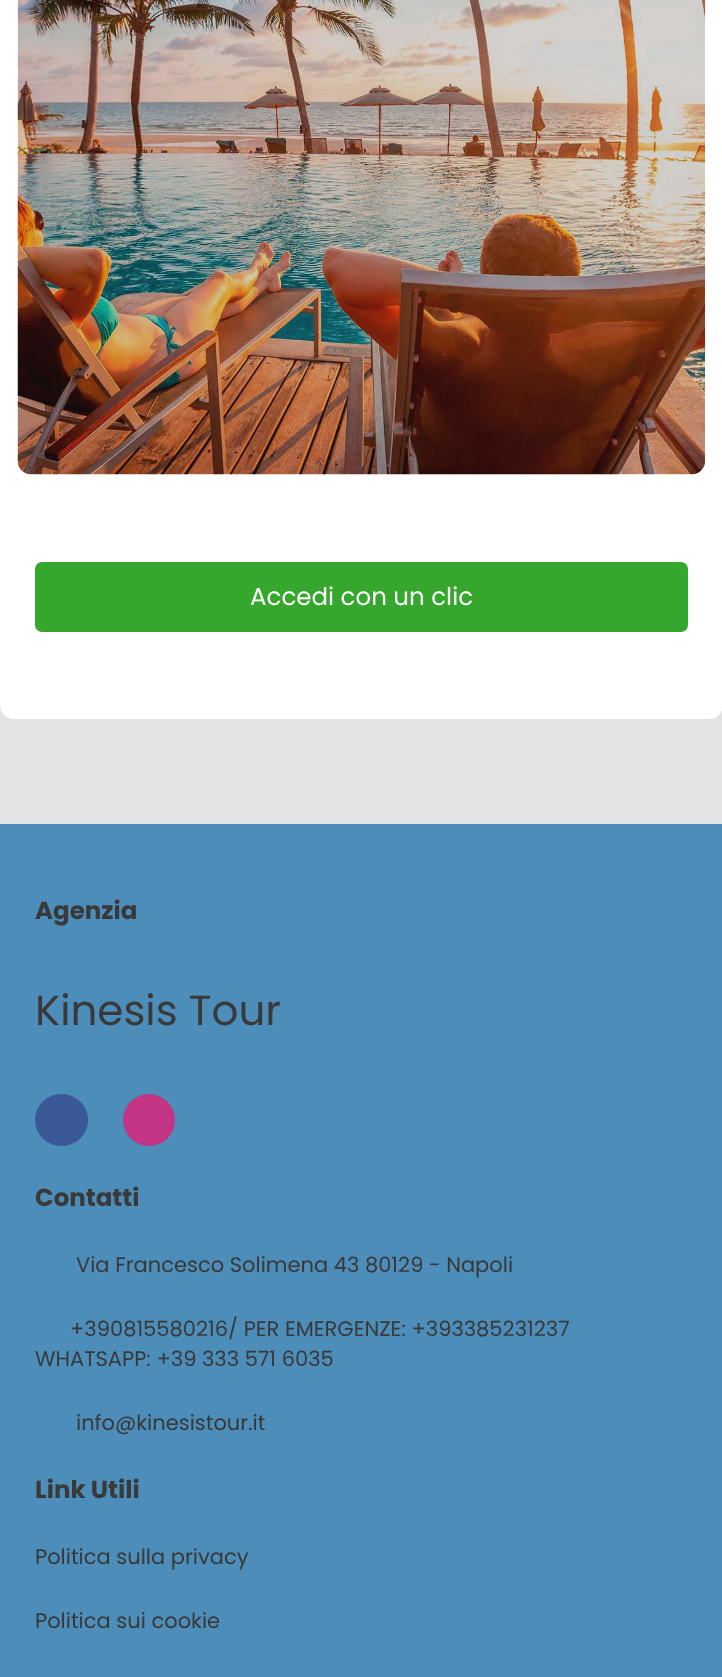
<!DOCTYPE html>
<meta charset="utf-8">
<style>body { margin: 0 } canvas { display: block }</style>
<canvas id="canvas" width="722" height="1677"></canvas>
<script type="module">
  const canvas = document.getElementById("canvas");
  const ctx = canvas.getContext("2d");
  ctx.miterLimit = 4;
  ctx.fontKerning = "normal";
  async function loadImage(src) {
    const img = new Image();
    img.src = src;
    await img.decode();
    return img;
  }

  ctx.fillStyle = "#e3e3e3";
  ctx.fillRect(0, 0, 722, 1677);
  ctx.fillStyle = "#ffffff";
  ctx.beginPath();
  ctx.roundRect(0, -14, 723, 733, 14);
  ctx.fill();
  ctx.drawImage(await loadImage("img1.png"), 17, 0, 689, 475);
  ctx.fillStyle = "rgba(57, 57, 57, 0.2)";
  ctx.beginPath();
  ctx.roundRect(18, -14, 687, 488, 14);
  ctx.fill();
  ctx.fillStyle = "#35a72d";
  ctx.beginPath();
  ctx.roundRect(35, 562, 653, 70, 7);
  ctx.fill();
  ctx.font = "24.5px Poppins";
  ctx.fillStyle = "#ffffff";
  ctx.fillText("Accedi con un clic", 250, 605);
  ctx.fillStyle = "#4d8db9";
  ctx.fillRect(0, 824, 722, 853);
  ctx.font = "bold 24.5px Poppins";
  ctx.fillStyle = "#393939";
  ctx.fillText("Agenzia", 35, 919);
  ctx.font = "42px Poppins";
  ctx.fillText("Kinesis Tour", 35, 1025);
  ctx.fillStyle = "#3b5998";
  ctx.beginPath();
  ctx.roundRect(35, 1094, 53, 52, 26);
  ctx.fill();
  ctx.fillStyle = "#c13584";
  ctx.beginPath();
  ctx.arc(149, 1120, 26, 0, Math.PI * 2);
  ctx.fill();
  ctx.font = "bold 24.5px Poppins";
  ctx.fillStyle = "#393939";
  ctx.fillText("Contatti", 35, 1206);
  ctx.font = "21px Poppins";
  ctx.fillText("Via Francesco Solimena 43 80129 - Napoli", 76, 1272);
  ctx.fillText("+390815580216/ PER EMERGENZE: +393385231237", 70, 1336);
  ctx.fillText("WHATSAPP: +39 333 571 6035", 35, 1366);
  ctx.fillText("info@kinesistour.it", 76, 1430);
  ctx.font = "bold 24.5px Poppins";
  ctx.fillText("Link Utili", 35, 1498);
  ctx.font = "21px Poppins";
  ctx.fillText("Politica sulla privacy", 35, 1564);
  ctx.fillText("Politica sui cookie", 35, 1628);
</script>
